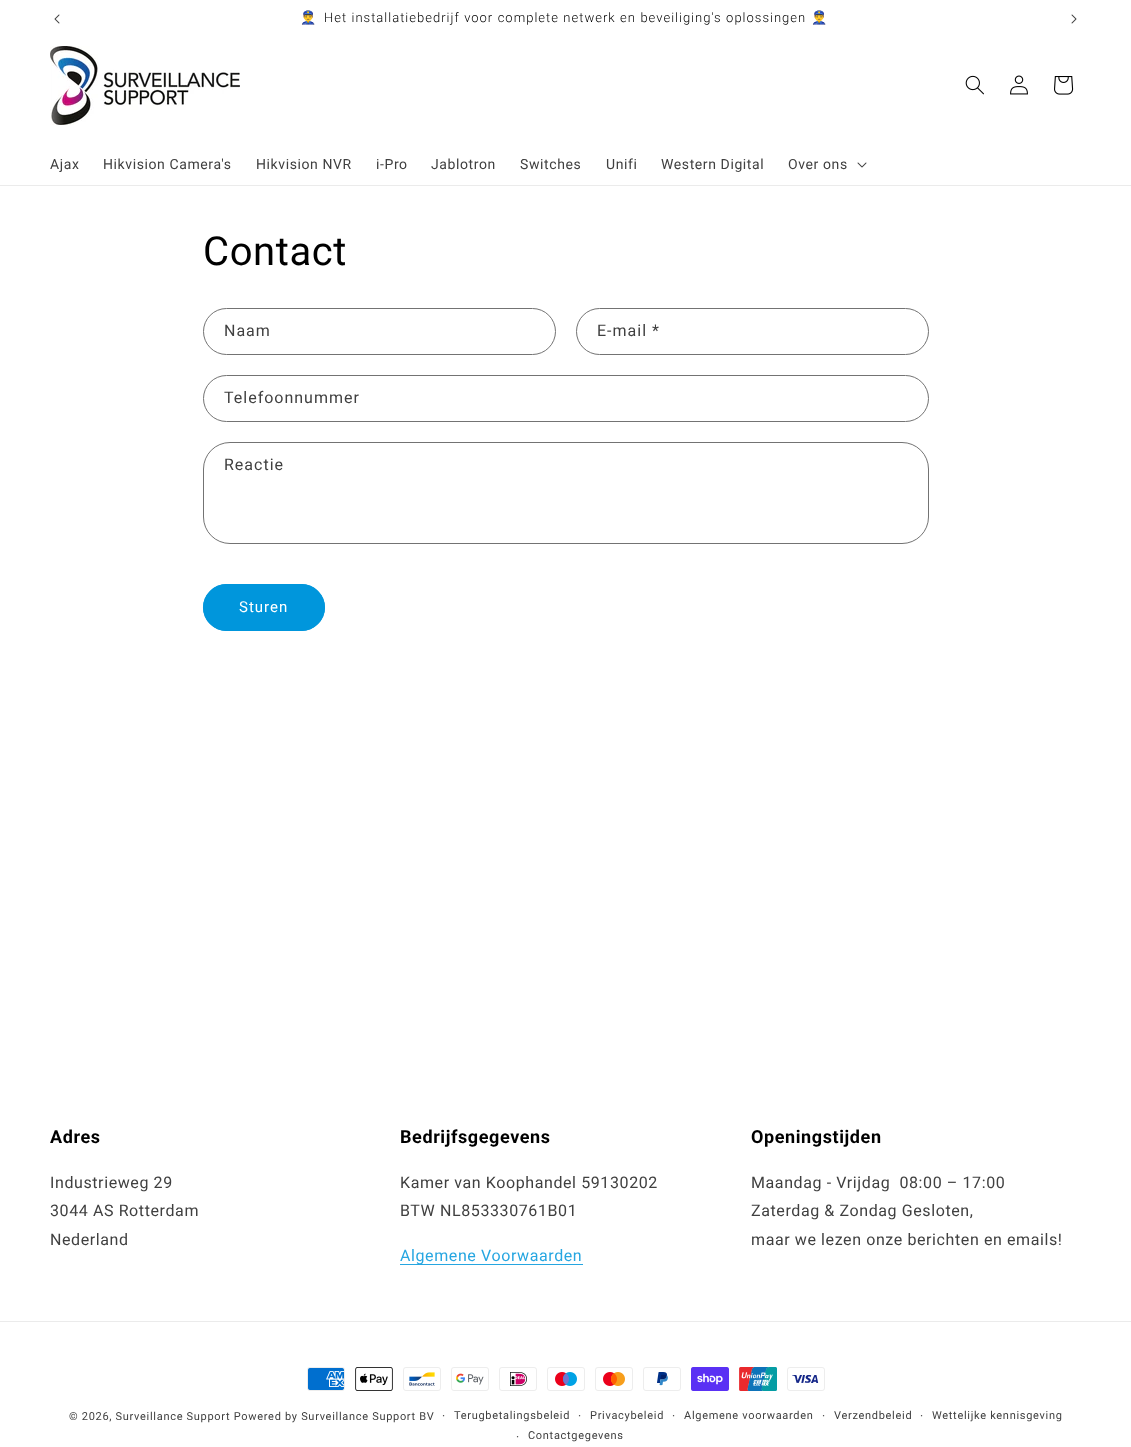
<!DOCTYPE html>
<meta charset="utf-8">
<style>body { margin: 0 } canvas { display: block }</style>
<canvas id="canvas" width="1131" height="1447"></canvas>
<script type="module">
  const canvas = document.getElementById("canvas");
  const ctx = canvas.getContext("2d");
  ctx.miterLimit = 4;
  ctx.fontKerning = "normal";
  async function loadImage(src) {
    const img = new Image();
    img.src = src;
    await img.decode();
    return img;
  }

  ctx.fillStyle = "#ffffff";
  ctx.fillRect(0, 0, 1131, 1447);
  ctx.drawImage(await loadImage("img1.png"), 54, 14, 6, 10);
  ctx.letterSpacing = "1px";
  ctx.font = "13px Noto Color Emoji";
  ctx.fillStyle = "#000000";
  ctx.fillText("👮‍♂️", 300, 22);
  ctx.wordSpacing = "0.25px";
  ctx.font = "300 13px Roboto";
  ctx.fillText("Het installatiebedrijf voor complete netwerk en beveiliging's oplossingen", 324, 22);
  ctx.wordSpacing = "0px";
  ctx.font = "13px Noto Color Emoji";
  ctx.fillText("👮‍♂️", 811, 22);
  ctx.drawImage(await loadImage("img2.png"), 1071, 14, 6, 10);
  ctx.fillStyle = "#ebebeb";
  ctx.fillRect(0, 185, 1131, 1);
  ctx.drawImage(await loadImage("img3.png"), 50, 46, 190, 79);
  ctx.drawImage(await loadImage("img4.png"), 965, 75, 19, 20);
  ctx.drawImage(await loadImage("img5.png"), 1010, 75, 18, 20);
  ctx.drawImage(await loadImage("img6.png"), 1054, 76, 20, 19);
  ctx.letterSpacing = "0.6px";
  ctx.font = "14px Roboto";
  ctx.fillStyle = "#404040";
  ctx.fillText("Ajax", 50, 169);
  ctx.fillText("Hikvision Camera's", 103, 169);
  ctx.fillText("Hikvision NVR", 256, 169);
  ctx.fillText("i-Pro", 376, 169);
  ctx.fillText("Jablotron", 431, 169);
  ctx.fillText("Switches", 520, 169);
  ctx.fillText("Unifi", 606, 169);
  ctx.fillText("Western Digital", 661, 169);
  ctx.fillText("Over ons", 788, 169);
  ctx.drawImage(await loadImage("img7.png"), 857, 162, 10, 6);
  ctx.font = "40px Roboto";
  ctx.fillStyle = "#000000";
  ctx.fillText("Contact", 203, 265);
  ctx.beginPath();
  ctx.roundRect(203.5, 308.5, 352, 46, 23);
  ctx.strokeStyle = "#737373";
  ctx.stroke();
  ctx.letterSpacing = "1px";
  ctx.font = "16px Roboto";
  ctx.fillStyle = "#404040";
  ctx.fillText("Naam", 224, 336);
  ctx.beginPath();
  ctx.roundRect(576.5, 308.5, 352, 46, 23);
  ctx.stroke();
  ctx.fillText("E‑mail *", 597, 336);
  ctx.beginPath();
  ctx.roundRect(203.5, 375.5, 725, 46, 23);
  ctx.stroke();
  ctx.fillText("Telefoonnummer", 224, 403);
  ctx.beginPath();
  ctx.roundRect(203.5, 442.5, 725, 101, 26.5);
  ctx.stroke();
  ctx.fillText("Reactie", 224, 470);
  ctx.fillStyle = "#0096dc";
  ctx.beginPath();
  ctx.roundRect(203, 584, 122, 47, 23.5);
  ctx.fill();
  ctx.beginPath();
  ctx.roundRect(203.5, 584.5, 121, 46, 23);
  ctx.strokeStyle = "#0096dc";
  ctx.stroke();
  ctx.font = "15px Roboto";
  ctx.fillStyle = "#ffffff";
  ctx.fillText("Sturen", 239, 612);
  ctx.letterSpacing = "0.6px";
  ctx.font = "bold 18px Roboto";
  ctx.fillStyle = "#000000";
  ctx.fillText("Adres", 50, 1143);
  ctx.font = "16px Roboto";
  ctx.fillStyle = "#404040";
  ctx.fillText("Industrieweg 29", 50, 1188);
  ctx.fillText("3044 AS Rotterdam", 50, 1216);
  ctx.fillText("Nederland", 50, 1245);
  ctx.font = "bold 18px Roboto";
  ctx.fillStyle = "#000000";
  ctx.fillText("Bedrijfsgegevens", 400, 1143);
  ctx.font = "16px Roboto";
  ctx.fillStyle = "#404040";
  ctx.fillText("Kamer van Koophandel 59130202", 400, 1188);
  ctx.fillText("BTW NL853330761B01", 400, 1216);
  ctx.fillStyle = "#26a6e1";
  ctx.fillRect(400, 1264, 183, 1);
  ctx.fillText("Algemene Voorwaarden", 400, 1261);
  ctx.font = "bold 18px Roboto";
  ctx.fillStyle = "#000000";
  ctx.fillText("Openingstijden", 751, 1143);
  ctx.font = "16px Roboto";
  ctx.fillStyle = "#404040";
  ctx.fillText("Maandag - Vrijdag  08:00 – 17:00", 751, 1188);
  ctx.fillText("Zaterdag & Zondag Gesloten,", 751, 1216);
  ctx.fillText("maar we lezen onze berichten en emails!", 751, 1245);
  ctx.fillStyle = "#ebebeb";
  ctx.fillRect(0, 1321, 1131, 1);
  ctx.drawImage(await loadImage("img8.png"), 307, 1367, 38, 24);
  ctx.drawImage(await loadImage("img9.png"), 355, 1367, 38, 24);
  ctx.drawImage(await loadImage("img10.png"), 403, 1367, 38, 24);
  ctx.drawImage(await loadImage("img11.png"), 451, 1367, 38, 24);
  ctx.drawImage(await loadImage("img12.png"), 499, 1367, 38, 24);
  ctx.drawImage(await loadImage("img13.png"), 547, 1367, 38, 24);
  ctx.drawImage(await loadImage("img14.png"), 595, 1367, 38, 24);
  ctx.drawImage(await loadImage("img15.png"), 643, 1367, 38, 24);
  ctx.drawImage(await loadImage("img16.png"), 691, 1367, 38, 24);
  ctx.drawImage(await loadImage("img17.png"), 739, 1367, 38, 24);
  ctx.drawImage(await loadImage("img18.png"), 787, 1367, 38, 24);
  ctx.letterSpacing = "0.7px";
  ctx.font = "11px Roboto";
  ctx.fillStyle = "#404040";
  ctx.fillText("© 2026, Surveillance Support Powered by Surveillance Support BV", 69, 1420);
  ctx.font = "12px Roboto";
  ctx.fillText("·", 442, 1420);
  ctx.font = "11px Roboto";
  ctx.fillText("Terugbetalingsbeleid", 454, 1419);
  ctx.font = "12px Roboto";
  ctx.fillText("·", 578, 1420);
  ctx.font = "11px Roboto";
  ctx.fillText("Privacybeleid", 590, 1419);
  ctx.font = "12px Roboto";
  ctx.fillText("·", 672, 1420);
  ctx.font = "11px Roboto";
  ctx.fillText("Algemene voorwaarden", 684, 1419);
  ctx.font = "12px Roboto";
  ctx.fillText("·", 822, 1420);
  ctx.font = "11px Roboto";
  ctx.fillText("Verzendbeleid", 834, 1419);
  ctx.font = "12px Roboto";
  ctx.fillText("·", 920, 1420);
  ctx.font = "11px Roboto";
  ctx.fillText("Wettelijke kennisgeving", 932, 1419);
  ctx.font = "12px Roboto";
  ctx.fillText("·", 516, 1441);
  ctx.font = "11px Roboto";
  ctx.fillText("Contactgegevens", 528, 1439);
</script>
